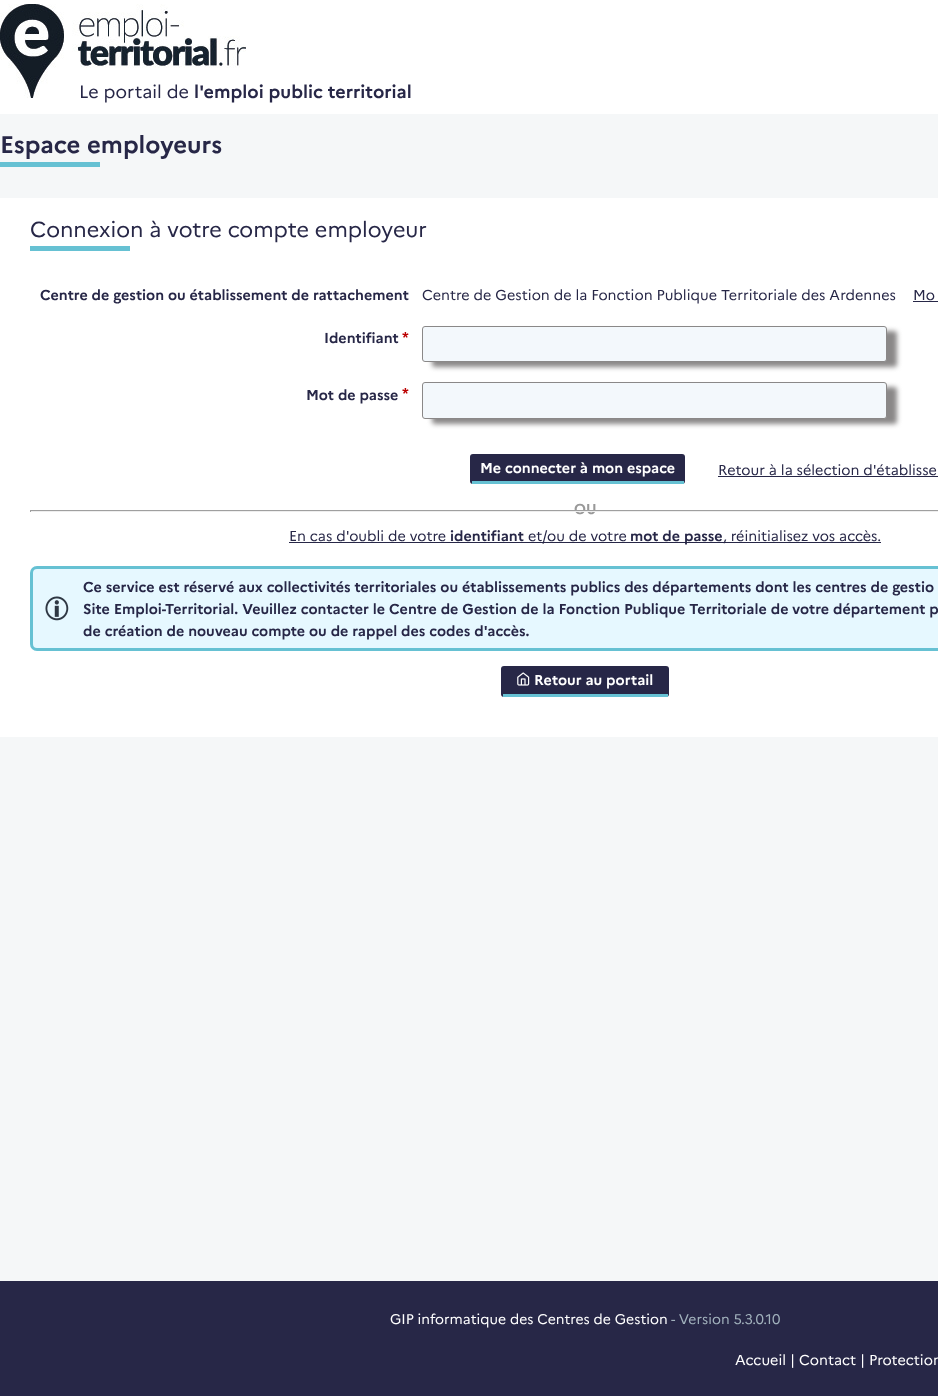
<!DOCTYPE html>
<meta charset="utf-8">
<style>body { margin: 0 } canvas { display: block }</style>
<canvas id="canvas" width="938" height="1396"></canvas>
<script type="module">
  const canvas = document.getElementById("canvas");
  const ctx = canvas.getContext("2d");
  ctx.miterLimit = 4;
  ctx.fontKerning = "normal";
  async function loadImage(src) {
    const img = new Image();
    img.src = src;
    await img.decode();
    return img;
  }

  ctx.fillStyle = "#f5f7f8";
  ctx.fillRect(0, 0, 938, 1396);
  ctx.fillStyle = "#ffffff";
  ctx.fillRect(0, 0, 938, 114);
  ctx.drawImage(await loadImage("img1.png"), 0, 4, 246, 94);
  ctx.font = "18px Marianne";
  ctx.fillStyle = "#272747";
  ctx.fillText("Le portail de", 79, 98);
  ctx.font = "bold 18px Marianne";
  ctx.fillText("l'emploi public territorial", 194, 98);
  ctx.font = "bold 24px Marianne";
  ctx.fillText("Espace employeurs", 0, 153);
  ctx.fillStyle = "#66c1d3";
  ctx.fillRect(0, 162, 100, 5);
  ctx.fillStyle = "#ffffff";
  ctx.fillRect(0, 198, 938, 539);
  ctx.font = "21.6px Marianne";
  ctx.fillStyle = "#272747";
  ctx.fillText("Connexion à votre compte employeur", 30, 237);
  ctx.fillStyle = "#66c1d3";
  ctx.fillRect(30, 246, 100, 5);
  ctx.font = "bold 14.4px Marianne";
  ctx.fillStyle = "#272747";
  ctx.fillText("Centre de gestion ou établissement de rattachement", 40, 300);
  ctx.font = "14.4px Marianne";
  ctx.fillText("Centre de Gestion de la Fonction Publique Territoriale des Ardennes", 422, 300);
  ctx.fillText("Mo", 913, 300);
  ctx.fillRect(913, 301, 25, 1);
  ctx.font = "bold 14.4px Marianne";
  ctx.fillText("Identifiant", 324, 343);
  ctx.fillStyle = "#bb0000";
  ctx.fillText("*", 402, 342);
  ctx.fillStyle = "#8a8888";
  ctx.filter = "blur(2.5px)";
  ctx.beginPath();
  ctx.roundRect(432, 331, 465, 36, 3);
  ctx.fill();
  ctx.filter = "none";
  ctx.fillStyle = "#f3f8fc";
  ctx.beginPath();
  ctx.roundRect(422.5, 326.5, 464, 35, 2.5);
  ctx.fill();
  ctx.strokeStyle = "#8a8888";
  ctx.stroke();
  ctx.fillStyle = "#272747";
  ctx.fillText("Mot de passe", 306, 400);
  ctx.fillStyle = "#bb0000";
  ctx.fillText("*", 402, 398);
  ctx.fillStyle = "#8a8888";
  ctx.filter = "blur(2.5px)";
  ctx.beginPath();
  ctx.roundRect(432, 387, 465, 37, 3);
  ctx.fill();
  ctx.filter = "none";
  ctx.fillStyle = "#f3f8fc";
  ctx.beginPath();
  ctx.roundRect(422.5, 382.5, 464, 36, 2.5);
  ctx.fill();
  ctx.stroke();
  ctx.fillStyle = "#272747";
  ctx.beginPath();
  ctx.roundRect(470, 454, 215, 30, 3);
  ctx.fill();
  ctx.fillStyle = "#66c1d3";
  ctx.fillRect(472, 481, 212, 3);
  ctx.fillStyle = "#ffffff";
  ctx.fillText("Me connecter à mon espace", 480, 473);
  ctx.font = "14.4px Marianne";
  ctx.fillStyle = "#272747";
  ctx.fillText("Retour à la sélection d'établisse", 718, 475);
  ctx.fillRect(718, 476, 220, 1);
  ctx.font = "bold 14.4px Marianne";
  ctx.fillStyle = "#999999";
  ctx.fillText("OU", 574, 514);
  ctx.fillStyle = "#9f9f9f";
  ctx.fillRect(30, 510, 908, 1);
  ctx.fillStyle = "#eeeeee";
  ctx.fillRect(30, 511, 908, 1);
  ctx.fillStyle = "#9f9f9f";
  ctx.fillRect(30, 510, 1, 2);
  ctx.font = "14.4px Marianne";
  ctx.fillStyle = "#272747";
  ctx.fillText("En cas d'oubli de votre", 289, 541);
  ctx.fillRect(289, 542, 592, 1);
  ctx.font = "bold 14.4px Marianne";
  ctx.fillText("identifiant", 450, 541);
  ctx.font = "14.4px Marianne";
  ctx.fillText("et/ou de votre", 528, 541);
  ctx.font = "bold 14.4px Marianne";
  ctx.fillText("mot de passe", 630, 541);
  ctx.font = "14.4px Marianne";
  ctx.fillText(", réinitialisez vos accès.", 723, 541);
  ctx.fillStyle = "#e6f8ff";
  ctx.beginPath();
  ctx.roundRect(30, 566, 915, 85, 7);
  ctx.fill();
  ctx.drawImage(await loadImage("img2.png"), 45, 596, 24, 25);
  ctx.beginPath();
  ctx.roundRect(31.5, 567.5, 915, 82, 5.5);
  ctx.strokeStyle = "#66c1d3";
  ctx.lineWidth = 3;
  ctx.stroke();
  ctx.font = "bold 14.4px Marianne";
  ctx.fillStyle = "#272747";
  ctx.fillText("Ce service est réservé aux collectivités territoriales ou établissements publics des départements dont les centres de gestio", 83, 592);
  ctx.fillText("Site Emploi-Territorial. Veuillez contacter le Centre de Gestion de la Fonction Publique Territoriale de votre département p", 83, 614);
  ctx.fillText("de création de nouveau compte ou de rappel des codes d'accès.", 83, 636);
  ctx.beginPath();
  ctx.roundRect(501, 666, 168, 31, 3);
  ctx.fill();
  ctx.fillStyle = "#66c1d3";
  ctx.fillRect(503, 694, 165, 3);
  ctx.drawImage(await loadImage("img3.png"), 517, 672, 13, 14);
  ctx.fillStyle = "#ffffff";
  ctx.fillText("Retour au portail", 534, 685);
  ctx.fillStyle = "#272747";
  ctx.fillRect(0, 1281, 938, 115);
  ctx.font = "14px Marianne";
  ctx.fillStyle = "#ffffff";
  ctx.fillText("GIP informatique des Centres de Gestion", 390, 1324);
  ctx.fillStyle = "#a1b1bc";
  ctx.fillText("- Version 5.3.0.10", 671, 1324);
  ctx.font = "14.4px Marianne";
  ctx.fillStyle = "#ffffff";
  ctx.fillText("Accueil | Contact | Protection", 735, 1365);
</script>
